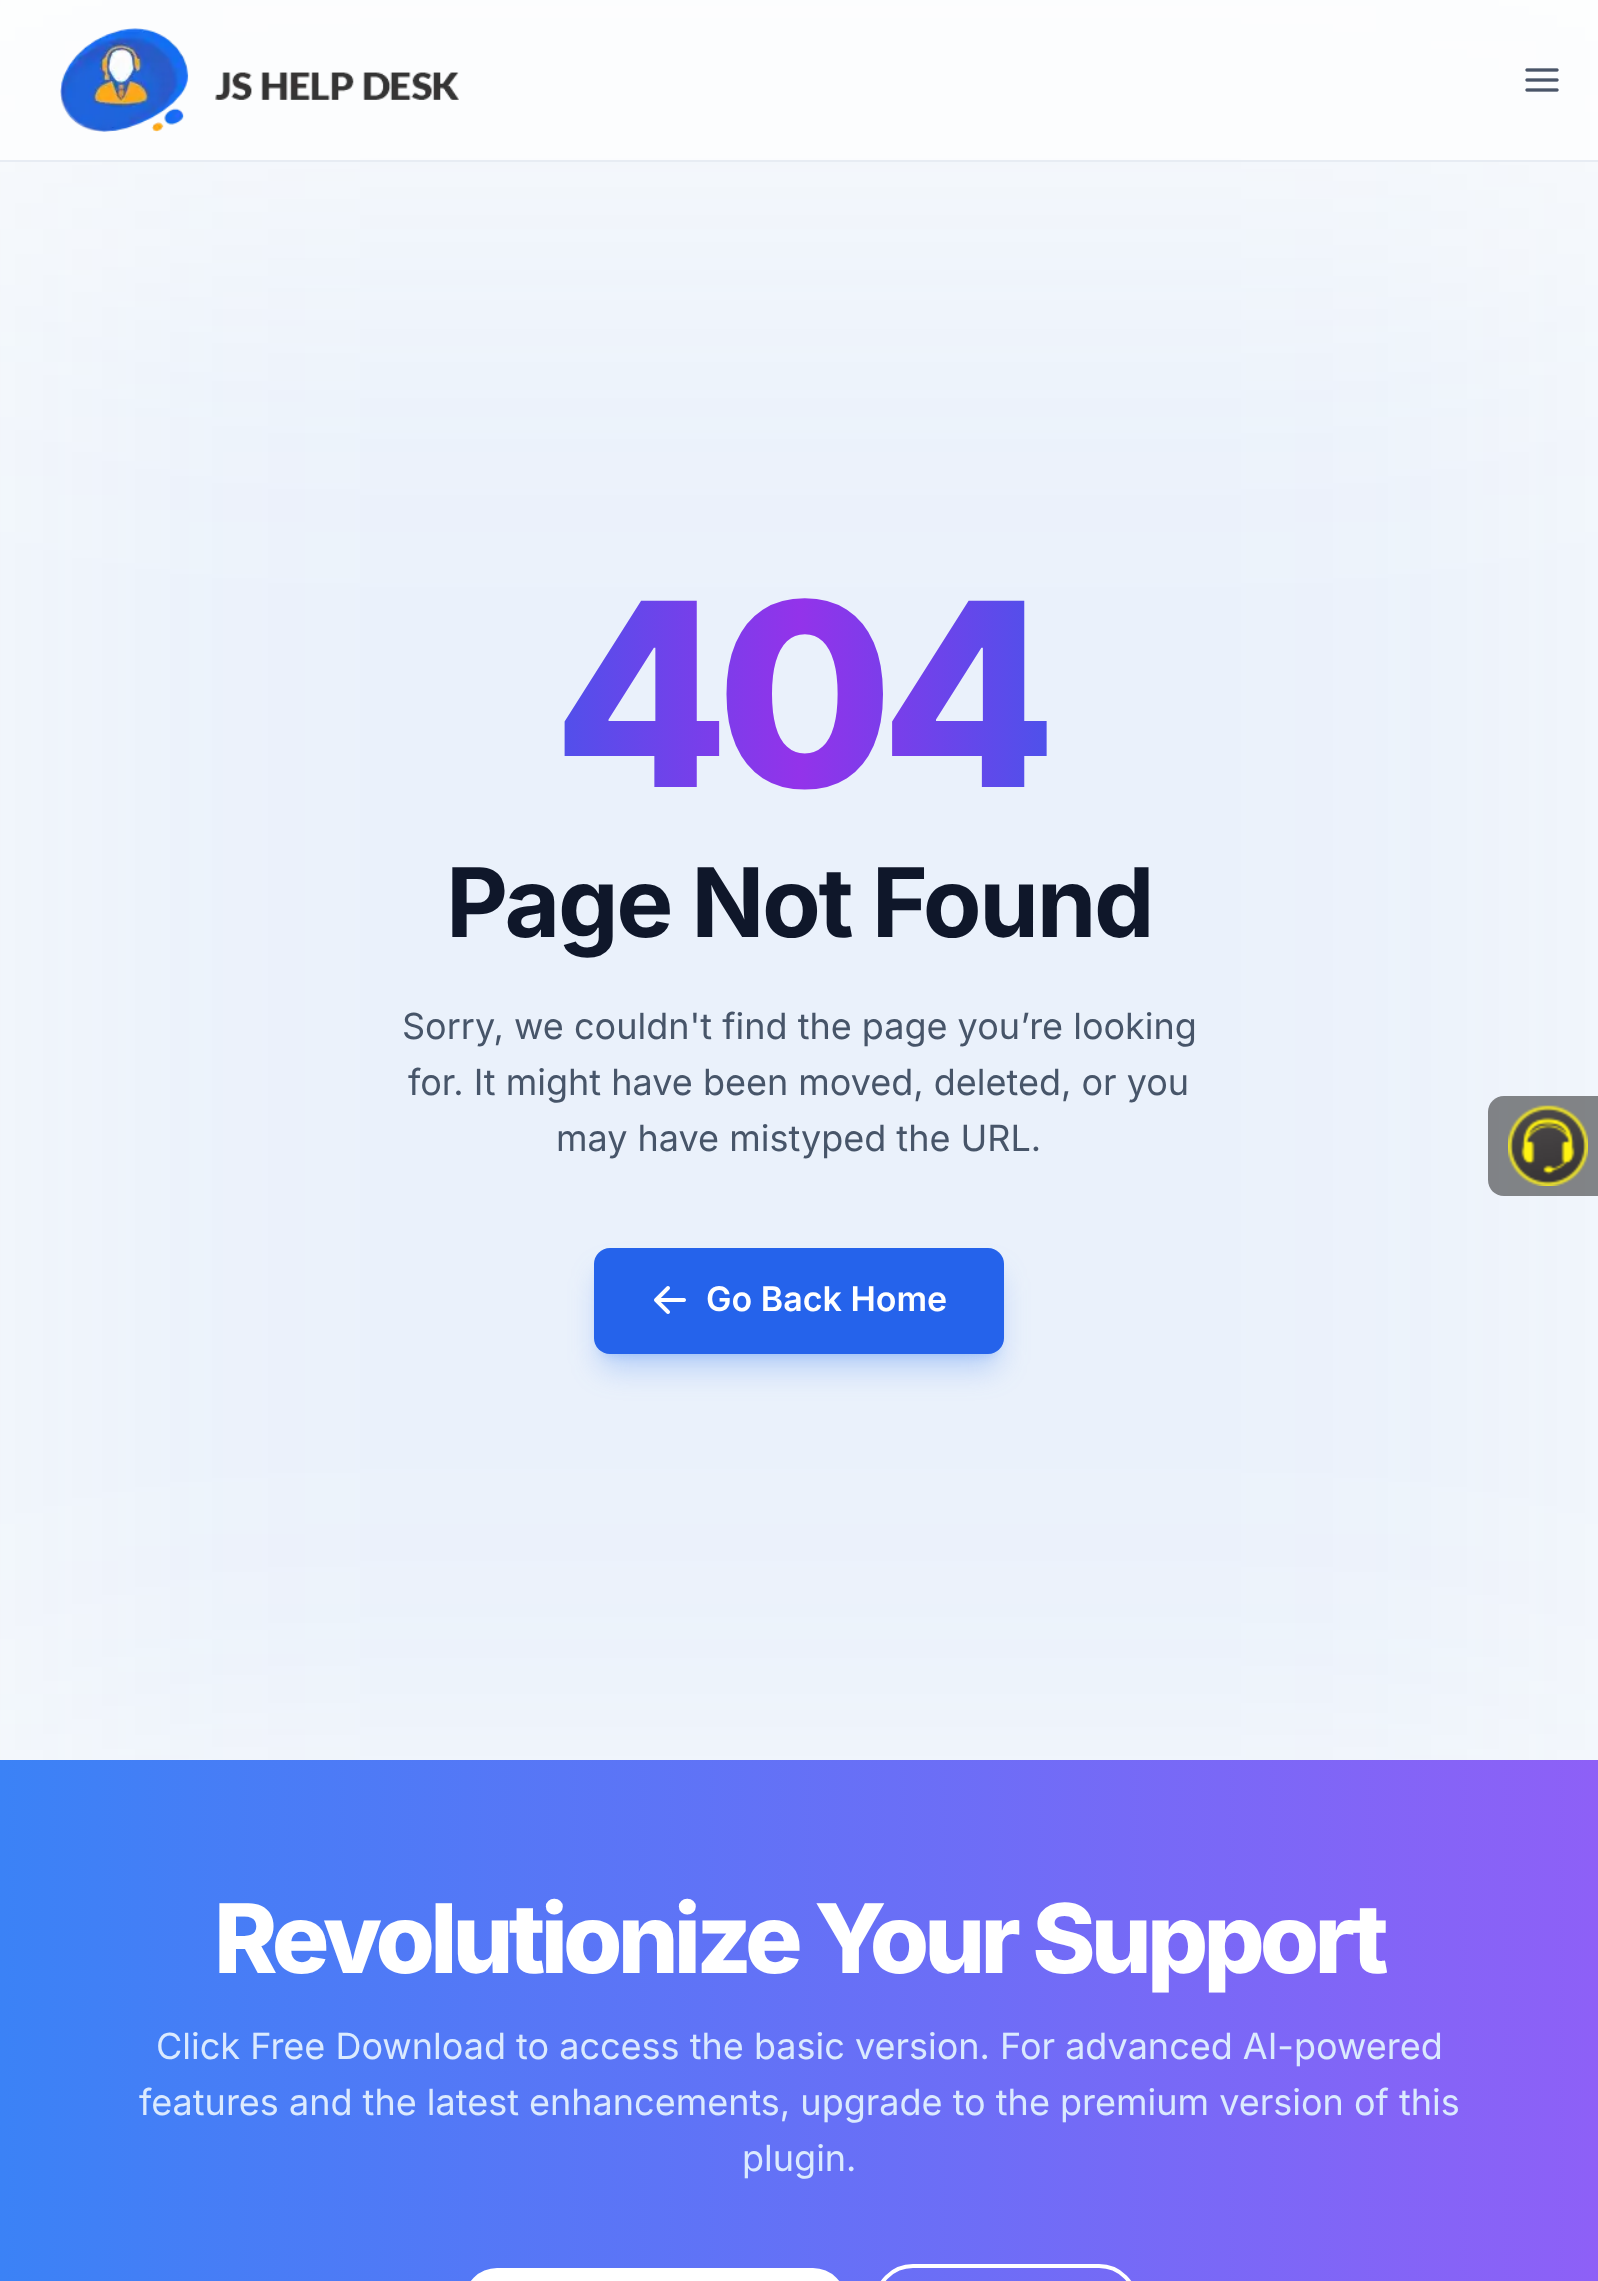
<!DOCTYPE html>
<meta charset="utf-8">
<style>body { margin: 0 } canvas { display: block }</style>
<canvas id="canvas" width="1598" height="2281"></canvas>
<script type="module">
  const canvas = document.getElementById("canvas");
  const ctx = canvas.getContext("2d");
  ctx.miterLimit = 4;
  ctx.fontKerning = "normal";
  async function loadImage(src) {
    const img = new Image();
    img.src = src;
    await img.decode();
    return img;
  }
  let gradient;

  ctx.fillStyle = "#f8fafc";
  ctx.fillRect(0, 0, 1598, 2281);
  ctx.fillStyle = "rgba(59, 130, 246, 0.07)";
  ctx.filter = "blur(200px)";
  ctx.beginPath();
  ctx.rect(0, 228, 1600, 1600);
  ctx.fill();
  ctx.filter = "none";
  ctx.fillStyle = "rgba(255, 255, 255, 0.7)";
  ctx.fillRect(0, 0, 1598, 160);
  ctx.fillStyle = "#e7ecf3";
  ctx.fillRect(0, 160, 1598, 2);
  ctx.drawImage(await loadImage("img1.png"), 60, 28, 399, 104);
  ctx.drawImage(await loadImage("img2.png"), 1525, 68, 34, 24);
  ctx.letterSpacing = "-13px";
  ctx.font = "800 256px Inter";
  gradient = ctx.createLinearGradient(399, 695, 1199, 695);
  gradient.addColorStop(0, "#2563eb");
  gradient.addColorStop(0.5, "#9333ea");
  gradient.addColorStop(1, "#2563eb");
  ctx.fillStyle = gradient;
  ctx.fillText("404", 553, 787);
  ctx.letterSpacing = "-2.4px";
  ctx.font = "bold 96px Inter";
  ctx.fillStyle = "#0f172a";
  ctx.fillText("Page Not Found", 446, 937);
  ctx.letterSpacing = "0px";
  ctx.font = "36px Inter";
  ctx.fillStyle = "#475569";
  ctx.fillText("Sorry, we couldn't find the page you’re looking", 402, 1039);
  ctx.fillText("for. It might have been moved, deleted, or you", 408, 1095);
  ctx.fillText("may have mistyped the URL.", 556, 1151);
  ctx.fillStyle = "rgba(59, 130, 246, 0.3)";
  ctx.filter = "blur(6px)";
  ctx.beginPath();
  ctx.roundRect(602, 1264, 394, 90, 8);
  ctx.fill();
  ctx.filter = "none";
  ctx.filter = "blur(15px)";
  ctx.beginPath();
  ctx.roundRect(600, 1274, 398, 94, 10);
  ctx.fill();
  ctx.filter = "none";
  ctx.fillStyle = "#2563eb";
  ctx.beginPath();
  ctx.roundRect(594, 1248, 410, 106, 16);
  ctx.fill();
  ctx.drawImage(await loadImage("img3.png"), 654, 1286, 32, 28);
  ctx.font = "600 34px Inter";
  ctx.fillStyle = "#ffffff";
  ctx.fillText("Go Back Home", 706, 1311);
  gradient = ctx.createLinearGradient(0, 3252, 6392, 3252);
  gradient.addColorStop(0, "#3b82f6");
  gradient.addColorStop(0.33, "#a855f7");
  gradient.addColorStop(0.67, "#ec4899");
  gradient.addColorStop(1, "#3b82f6");
  ctx.fillStyle = gradient;
  ctx.fillRect(0, 1760, 1598, 521);
  ctx.letterSpacing = "-4.8px";
  ctx.font = "800 96px Inter";
  ctx.fillStyle = "#ffffff";
  ctx.fillText("Revolutionize Your Support", 214, 1973);
  ctx.letterSpacing = "0px";
  ctx.font = "36px Inter";
  ctx.fillStyle = "#dbeafe";
  ctx.fillText("Click Free Download to access the basic version. For advanced AI-powered", 156, 2059);
  ctx.fillText("features and the latest enhancements, upgrade to the premium version of this", 139, 2115);
  ctx.fillText("plugin.", 742, 2171);
  ctx.fillStyle = "#ffffff";
  ctx.beginPath();
  ctx.roundRect(464, 2268, 382, 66, 53);
  ctx.fill();
  ctx.beginPath();
  ctx.roundRect(876, 2266, 260, 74, 55);
  ctx.strokeStyle = "#ffffff";
  ctx.lineWidth = 4;
  ctx.stroke();
  ctx.fillStyle = "rgba(18, 17, 17, 0.5)";
  ctx.beginPath();
  ctx.moveTo(1504, 1096);
  ctx.lineTo(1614, 1096);
  ctx.lineTo(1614, 1196);
  ctx.lineTo(1504, 1196);
  ctx.bezierCurveTo(1495, 1196, 1488, 1189, 1488, 1180);
  ctx.lineTo(1488, 1112);
  ctx.bezierCurveTo(1488, 1103, 1495, 1096, 1504, 1096);
  ctx.closePath();
  ctx.fill();
  ctx.drawImage(await loadImage("img4.png"), 1508, 1105, 80, 81);
</script>
